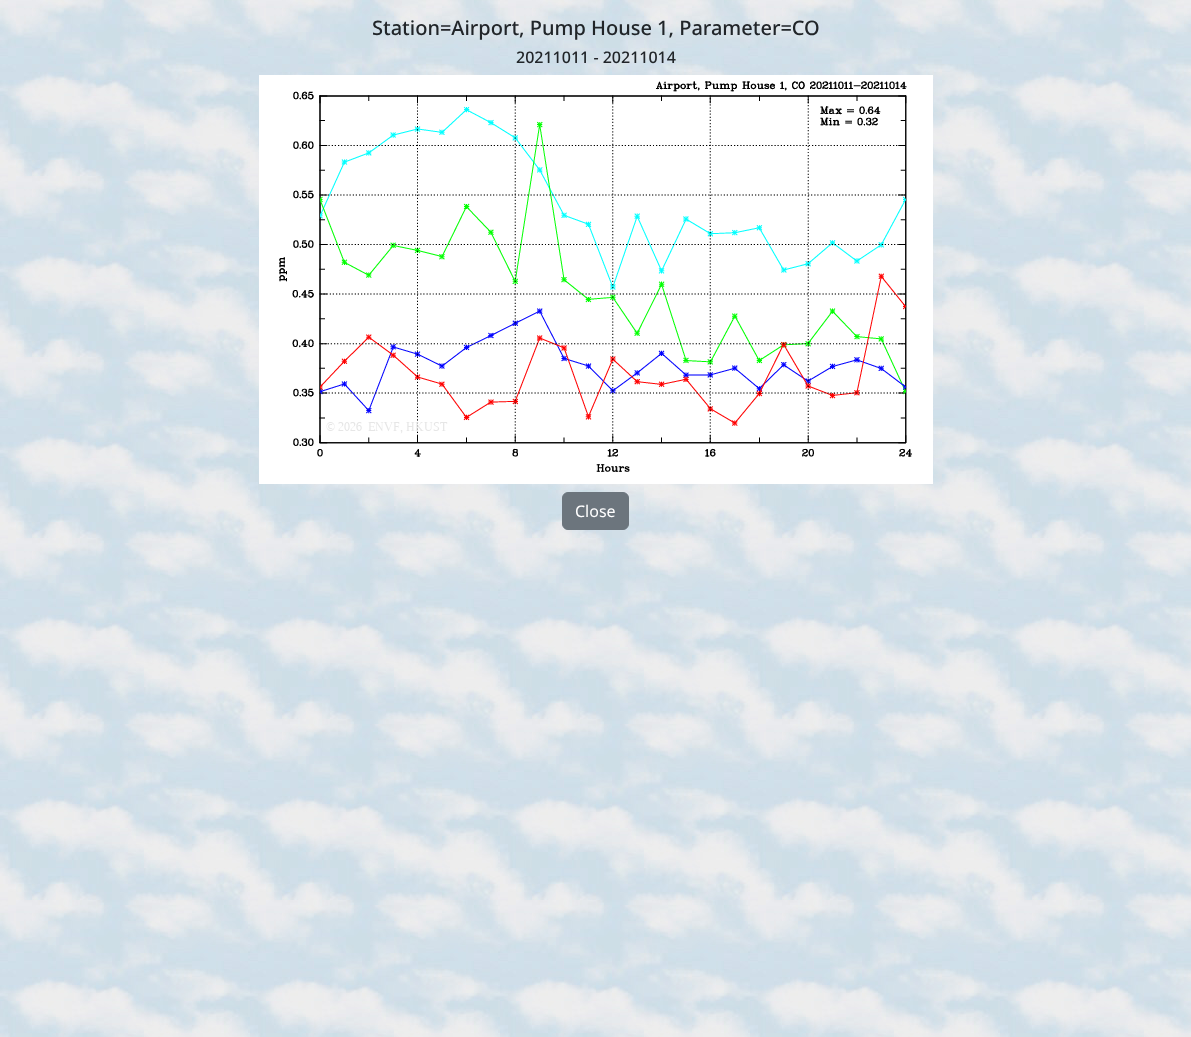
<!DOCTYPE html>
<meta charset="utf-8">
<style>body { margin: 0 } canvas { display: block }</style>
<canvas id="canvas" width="1191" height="1037"></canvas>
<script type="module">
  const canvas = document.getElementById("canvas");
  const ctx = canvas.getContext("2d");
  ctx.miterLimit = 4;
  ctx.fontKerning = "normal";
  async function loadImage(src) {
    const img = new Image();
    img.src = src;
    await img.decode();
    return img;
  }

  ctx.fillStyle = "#ffffff";
  ctx.fillRect(0, 0, 1191, 1037);
  ctx.drawImage(await loadImage("img1.png"), 0, 0, 1191, 1037);
  ctx.font = "500 20px Noto Sans";
  ctx.fillStyle = "#212529";
  ctx.fillText("Station=Airport, Pump House 1, Parameter=CO", 372, 35);
  ctx.font = "500 16px Noto Sans";
  ctx.fillText("20211011 - 20211014", 516, 63);
  ctx.drawImage(await loadImage("img2.png"), 259, 75, 674, 409);
  ctx.fillStyle = "#6c757d";
  ctx.beginPath();
  ctx.roundRect(562.5, 492.5, 66, 37, 5.5);
  ctx.fill();
  ctx.strokeStyle = "#6c757d";
  ctx.stroke();
  ctx.font = "16px Noto Sans";
  ctx.fillStyle = "#ffffff";
  ctx.fillText("Close", 575, 517);
</script>
